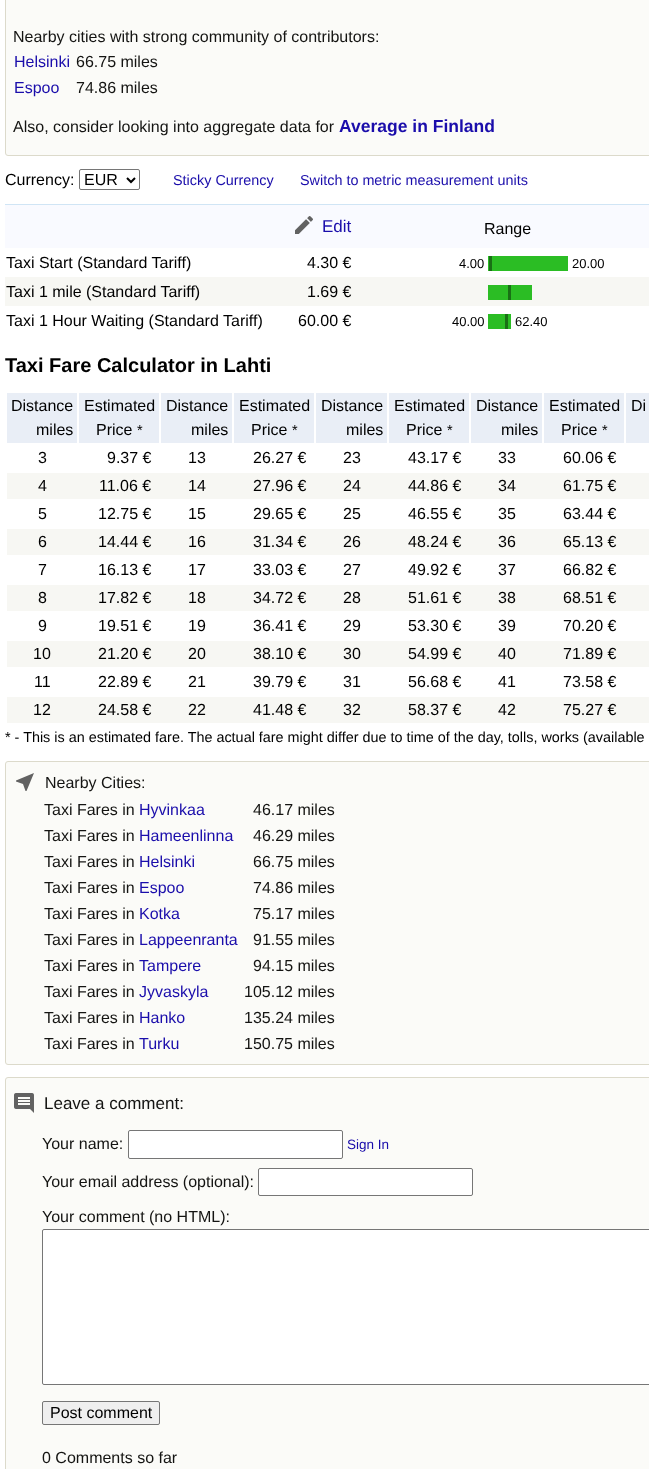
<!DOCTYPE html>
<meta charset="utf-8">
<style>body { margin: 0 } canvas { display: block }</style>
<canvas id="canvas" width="649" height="1469"></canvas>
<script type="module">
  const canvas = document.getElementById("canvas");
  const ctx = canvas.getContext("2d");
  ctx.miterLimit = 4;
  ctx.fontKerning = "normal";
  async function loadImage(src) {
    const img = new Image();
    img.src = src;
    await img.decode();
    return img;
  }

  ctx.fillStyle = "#ffffff";
  ctx.fillRect(0, 0, 649, 1469);
  ctx.fillStyle = "#fbfbf8";
  ctx.beginPath();
  ctx.roundRect(5.5, -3.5, 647, 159, 2.5);
  ctx.fill();
  ctx.strokeStyle = "#dcdacb";
  ctx.stroke();
  ctx.font = "16px Liberation Sans";
  ctx.fillStyle = "#141412";
  ctx.fillText("Nearby cities with strong community of contributors:", 13, 42);
  ctx.fillStyle = "#1a0dab";
  ctx.fillText("Helsinki", 14, 67);
  ctx.fillStyle = "#141412";
  ctx.fillText("66.75 miles", 76, 67);
  ctx.fillStyle = "#1a0dab";
  ctx.fillText("Espoo", 14, 93);
  ctx.fillStyle = "#141412";
  ctx.fillText("74.86 miles", 76, 93);
  ctx.fillText("Also, consider looking into aggregate data for", 13, 132);
  ctx.font = "bold 17.5px Liberation Sans";
  ctx.fillStyle = "#1a0dab";
  ctx.fillText("Average in Finland", 339, 132);
  ctx.font = "16px Liberation Sans";
  ctx.fillStyle = "#000000";
  ctx.fillText("Currency:", 5, 185);
  ctx.beginPath();
  ctx.roundRect(79.5, 169.5, 60, 20, 1.5);
  ctx.strokeStyle = "#767676";
  ctx.stroke();
  ctx.beginPath();
  ctx.moveTo(127, 178);
  ctx.lineTo(131, 182);
  ctx.lineTo(135, 178);
  ctx.strokeStyle = "#000000";
  ctx.lineWidth = 2;
  ctx.stroke();
  ctx.fillText("EUR", 84, 185);
  ctx.font = "14.4px Liberation Sans";
  ctx.fillStyle = "#1a0dab";
  ctx.fillText("Sticky Currency", 173, 185);
  ctx.fillText("Switch to metric measurement units", 300, 185);
  ctx.fillStyle = "#f9faff";
  ctx.fillRect(5, 205, 644, 43);
  ctx.fillStyle = "#d0e5f5";
  ctx.fillRect(5, 204, 644, 1);
  ctx.drawImage(await loadImage("img1.png"), 295, 216, 18, 18);
  ctx.font = "17px Liberation Sans";
  ctx.fillStyle = "#1a0dab";
  ctx.fillText("Edit", 322, 232);
  ctx.font = "16px Liberation Sans";
  ctx.fillStyle = "#000000";
  ctx.fillText("Range", 484, 234);
  ctx.fillText("Taxi Start (Standard Tariff)", 6, 268);
  ctx.fillText("4.30 €", 307, 268);
  ctx.font = "13px Liberation Sans";
  ctx.fillText("4.00", 459, 268);
  ctx.fillStyle = "#2bbd24";
  ctx.fillRect(488, 256, 1, 15);
  ctx.fillStyle = "#197015";
  ctx.fillRect(489, 256, 3, 15);
  ctx.fillStyle = "#2bbd24";
  ctx.fillRect(492, 256, 76, 15);
  ctx.fillStyle = "#000000";
  ctx.fillText("20.00", 572, 268);
  ctx.fillStyle = "#f7f7f3";
  ctx.fillRect(5, 277, 644, 29);
  ctx.font = "16px Liberation Sans";
  ctx.fillStyle = "#000000";
  ctx.fillText("Taxi 1 mile (Standard Tariff)", 6, 297);
  ctx.fillText("1.69 €", 307, 297);
  ctx.fillStyle = "#2bbd24";
  ctx.fillRect(488, 285, 20, 15);
  ctx.fillStyle = "#197015";
  ctx.fillRect(508, 285, 3, 15);
  ctx.fillStyle = "#2bbd24";
  ctx.fillRect(511, 285, 21, 15);
  ctx.fillStyle = "#000000";
  ctx.fillText("Taxi 1 Hour Waiting (Standard Tariff)", 6, 326);
  ctx.fillText("60.00 €", 298, 326);
  ctx.font = "13px Liberation Sans";
  ctx.fillText("40.00", 452, 326);
  ctx.fillStyle = "#2bbd24";
  ctx.fillRect(488, 314, 17, 15);
  ctx.fillStyle = "#197015";
  ctx.fillRect(505, 314, 3, 15);
  ctx.fillStyle = "#2bbd24";
  ctx.fillRect(508, 314, 3, 15);
  ctx.fillStyle = "#000000";
  ctx.fillText("62.40", 515, 326);
  ctx.font = "bold 20px Liberation Sans";
  ctx.fillText("Taxi Fare Calculator in Lahti", 5, 372);
  ctx.fillStyle = "#e9eef6";
  ctx.fillRect(7, 393, 70, 50);
  ctx.font = "16px Liberation Sans";
  ctx.fillStyle = "#000000";
  ctx.fillText("Distance", 11, 411);
  ctx.fillText("miles", 36, 435);
  ctx.fillStyle = "#e9eef6";
  ctx.fillRect(79, 393, 80, 50);
  ctx.fillStyle = "#000000";
  ctx.fillText("Estimated", 84, 411);
  ctx.fillText("Price", 96, 435);
  ctx.font = "14.4px Liberation Sans";
  ctx.fillText("*", 137, 435);
  ctx.fillStyle = "#e9eef6";
  ctx.fillRect(161, 393, 71, 50);
  ctx.font = "16px Liberation Sans";
  ctx.fillStyle = "#000000";
  ctx.fillText("Distance", 166, 411);
  ctx.fillText("miles", 191, 435);
  ctx.fillStyle = "#e9eef6";
  ctx.fillRect(234, 393, 80, 50);
  ctx.fillStyle = "#000000";
  ctx.fillText("Estimated", 239, 411);
  ctx.fillText("Price", 251, 435);
  ctx.font = "14.4px Liberation Sans";
  ctx.fillText("*", 292, 435);
  ctx.fillStyle = "#e9eef6";
  ctx.fillRect(316, 393, 71, 50);
  ctx.font = "16px Liberation Sans";
  ctx.fillStyle = "#000000";
  ctx.fillText("Distance", 321, 411);
  ctx.fillText("miles", 346, 435);
  ctx.fillStyle = "#e9eef6";
  ctx.fillRect(389, 393, 80, 50);
  ctx.fillStyle = "#000000";
  ctx.fillText("Estimated", 394, 411);
  ctx.fillText("Price", 406, 435);
  ctx.font = "14.4px Liberation Sans";
  ctx.fillText("*", 447, 435);
  ctx.fillStyle = "#e9eef6";
  ctx.fillRect(471, 393, 71, 50);
  ctx.font = "16px Liberation Sans";
  ctx.fillStyle = "#000000";
  ctx.fillText("Distance", 476, 411);
  ctx.fillText("miles", 501, 435);
  ctx.fillStyle = "#e9eef6";
  ctx.fillRect(544, 393, 80, 50);
  ctx.fillStyle = "#000000";
  ctx.fillText("Estimated", 549, 411);
  ctx.fillText("Price", 561, 435);
  ctx.font = "14.4px Liberation Sans";
  ctx.fillText("*", 602, 435);
  ctx.fillStyle = "#e9eef6";
  ctx.fillRect(626, 393, 23, 50);
  ctx.font = "16px Liberation Sans";
  ctx.fillStyle = "#000000";
  ctx.fillText("Di", 631, 411);
  ctx.fillText("3", 38, 463);
  ctx.fillText("9.37 €", 107, 463);
  ctx.fillText("13", 188, 463);
  ctx.fillText("26.27 €", 253, 463);
  ctx.fillText("23", 343, 463);
  ctx.fillText("43.17 €", 408, 463);
  ctx.fillText("33", 498, 463);
  ctx.fillText("60.06 €", 563, 463);
  ctx.fillStyle = "#f7f7f3";
  ctx.fillRect(7, 473, 642, 26);
  ctx.fillStyle = "#000000";
  ctx.fillText("4", 38, 491);
  ctx.fillText("11.06 €", 99, 491);
  ctx.fillText("14", 188, 491);
  ctx.fillText("27.96 €", 253, 491);
  ctx.fillText("24", 343, 491);
  ctx.fillText("44.86 €", 408, 491);
  ctx.fillText("34", 498, 491);
  ctx.fillText("61.75 €", 563, 491);
  ctx.fillText("5", 38, 519);
  ctx.fillText("12.75 €", 98, 519);
  ctx.fillText("15", 188, 519);
  ctx.fillText("29.65 €", 253, 519);
  ctx.fillText("25", 343, 519);
  ctx.fillText("46.55 €", 408, 519);
  ctx.fillText("35", 498, 519);
  ctx.fillText("63.44 €", 563, 519);
  ctx.fillStyle = "#f7f7f3";
  ctx.fillRect(7, 529, 642, 26);
  ctx.fillStyle = "#000000";
  ctx.fillText("6", 38, 547);
  ctx.fillText("14.44 €", 98, 547);
  ctx.fillText("16", 188, 547);
  ctx.fillText("31.34 €", 253, 547);
  ctx.fillText("26", 343, 547);
  ctx.fillText("48.24 €", 408, 547);
  ctx.fillText("36", 498, 547);
  ctx.fillText("65.13 €", 563, 547);
  ctx.fillText("7", 38, 575);
  ctx.fillText("16.13 €", 98, 575);
  ctx.fillText("17", 188, 575);
  ctx.fillText("33.03 €", 253, 575);
  ctx.fillText("27", 343, 575);
  ctx.fillText("49.92 €", 408, 575);
  ctx.fillText("37", 498, 575);
  ctx.fillText("66.82 €", 563, 575);
  ctx.fillStyle = "#f7f7f3";
  ctx.fillRect(7, 585, 642, 26);
  ctx.fillStyle = "#000000";
  ctx.fillText("8", 38, 603);
  ctx.fillText("17.82 €", 98, 603);
  ctx.fillText("18", 188, 603);
  ctx.fillText("34.72 €", 253, 603);
  ctx.fillText("28", 343, 603);
  ctx.fillText("51.61 €", 408, 603);
  ctx.fillText("38", 498, 603);
  ctx.fillText("68.51 €", 563, 603);
  ctx.fillText("9", 38, 631);
  ctx.fillText("19.51 €", 98, 631);
  ctx.fillText("19", 188, 631);
  ctx.fillText("36.41 €", 253, 631);
  ctx.fillText("29", 343, 631);
  ctx.fillText("53.30 €", 408, 631);
  ctx.fillText("39", 498, 631);
  ctx.fillText("70.20 €", 563, 631);
  ctx.fillStyle = "#f7f7f3";
  ctx.fillRect(7, 641, 642, 26);
  ctx.fillStyle = "#000000";
  ctx.fillText("10", 33, 659);
  ctx.fillText("21.20 €", 98, 659);
  ctx.fillText("20", 188, 659);
  ctx.fillText("38.10 €", 253, 659);
  ctx.fillText("30", 343, 659);
  ctx.fillText("54.99 €", 408, 659);
  ctx.fillText("40", 498, 659);
  ctx.fillText("71.89 €", 563, 659);
  ctx.fillText("11", 34, 687);
  ctx.fillText("22.89 €", 98, 687);
  ctx.fillText("21", 188, 687);
  ctx.fillText("39.79 €", 253, 687);
  ctx.fillText("31", 343, 687);
  ctx.fillText("56.68 €", 408, 687);
  ctx.fillText("41", 498, 687);
  ctx.fillText("73.58 €", 563, 687);
  ctx.fillStyle = "#f7f7f3";
  ctx.fillRect(7, 697, 642, 26);
  ctx.fillStyle = "#000000";
  ctx.fillText("12", 33, 715);
  ctx.fillText("24.58 €", 98, 715);
  ctx.fillText("22", 188, 715);
  ctx.fillText("41.48 €", 253, 715);
  ctx.fillText("32", 343, 715);
  ctx.fillText("58.37 €", 408, 715);
  ctx.fillText("42", 498, 715);
  ctx.fillText("75.27 €", 563, 715);
  ctx.font = "14.4px Liberation Sans";
  ctx.fillText("* - This is an estimated fare. The actual fare might differ due to time of the day, tolls, works (available", 5, 742);
  ctx.fillStyle = "#fbfbf8";
  ctx.beginPath();
  ctx.roundRect(5.5, 761.5, 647, 303, 2.5);
  ctx.fill();
  ctx.strokeStyle = "#dcdacb";
  ctx.lineWidth = 1;
  ctx.stroke();
  ctx.fillStyle = "#626262";
  ctx.beginPath();
  ctx.moveTo(34, 773);
  ctx.lineTo(16, 780.5);
  ctx.lineTo(16, 781.5);
  ctx.lineTo(23, 784);
  ctx.lineTo(25.5, 791);
  ctx.lineTo(26.5, 791);
  ctx.closePath();
  ctx.fill();
  ctx.font = "16px Liberation Sans";
  ctx.fillStyle = "#141412";
  ctx.fillText("Nearby Cities:", 45, 788);
  ctx.fillText("Taxi Fares in", 44, 815);
  ctx.fillStyle = "#1a0dab";
  ctx.fillText("Hyvinkaa", 139, 815);
  ctx.fillStyle = "#141412";
  ctx.fillText("46.17 miles", 253, 815);
  ctx.fillText("Taxi Fares in", 44, 841);
  ctx.fillStyle = "#1a0dab";
  ctx.fillText("Hameenlinna", 139, 841);
  ctx.fillStyle = "#141412";
  ctx.fillText("46.29 miles", 253, 841);
  ctx.fillText("Taxi Fares in", 44, 867);
  ctx.fillStyle = "#1a0dab";
  ctx.fillText("Helsinki", 139, 867);
  ctx.fillStyle = "#141412";
  ctx.fillText("66.75 miles", 253, 867);
  ctx.fillText("Taxi Fares in", 44, 893);
  ctx.fillStyle = "#1a0dab";
  ctx.fillText("Espoo", 139, 893);
  ctx.fillStyle = "#141412";
  ctx.fillText("74.86 miles", 253, 893);
  ctx.fillText("Taxi Fares in", 44, 919);
  ctx.fillStyle = "#1a0dab";
  ctx.fillText("Kotka", 139, 919);
  ctx.fillStyle = "#141412";
  ctx.fillText("75.17 miles", 253, 919);
  ctx.fillText("Taxi Fares in", 44, 945);
  ctx.fillStyle = "#1a0dab";
  ctx.fillText("Lappeenranta", 139, 945);
  ctx.fillStyle = "#141412";
  ctx.fillText("91.55 miles", 253, 945);
  ctx.fillText("Taxi Fares in", 44, 971);
  ctx.fillStyle = "#1a0dab";
  ctx.fillText("Tampere", 139, 971);
  ctx.fillStyle = "#141412";
  ctx.fillText("94.15 miles", 253, 971);
  ctx.fillText("Taxi Fares in", 44, 997);
  ctx.fillStyle = "#1a0dab";
  ctx.fillText("Jyvaskyla", 139, 997);
  ctx.fillStyle = "#141412";
  ctx.fillText("105.12 miles", 244, 997);
  ctx.fillText("Taxi Fares in", 44, 1023);
  ctx.fillStyle = "#1a0dab";
  ctx.fillText("Hanko", 139, 1023);
  ctx.fillStyle = "#141412";
  ctx.fillText("135.24 miles", 244, 1023);
  ctx.fillText("Taxi Fares in", 44, 1049);
  ctx.fillStyle = "#1a0dab";
  ctx.fillText("Turku", 139, 1049);
  ctx.fillStyle = "#141412";
  ctx.fillText("150.75 miles", 244, 1049);
  ctx.fillStyle = "#fbfbf8";
  ctx.beginPath();
  ctx.roundRect(5.5, 1077.5, 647, 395, 2.5);
  ctx.fill();
  ctx.stroke();
  ctx.drawImage(await loadImage("img2.png"), 14, 1093, 20, 20);
  ctx.font = "17px Liberation Sans";
  ctx.fillStyle = "#141412";
  ctx.fillText("Leave a comment:", 44, 1109);
  ctx.font = "16px Liberation Sans";
  ctx.fillText("Your name:", 42, 1149);
  ctx.fillStyle = "#ffffff";
  ctx.beginPath();
  ctx.roundRect(128.5, 1130.5, 214, 28, 1.5);
  ctx.fill();
  ctx.strokeStyle = "#767676";
  ctx.stroke();
  ctx.font = "13.5px Liberation Sans";
  ctx.fillStyle = "#1a0dab";
  ctx.fillText("Sign In", 347, 1149);
  ctx.font = "16px Liberation Sans";
  ctx.fillStyle = "#141412";
  ctx.fillText("Your email address (optional):", 42, 1187);
  ctx.fillStyle = "#ffffff";
  ctx.beginPath();
  ctx.roundRect(258.5, 1168.5, 214, 27, 1.5);
  ctx.fill();
  ctx.stroke();
  ctx.fillStyle = "#141412";
  ctx.fillText("Your comment (no HTML):", 42, 1222);
  ctx.fillStyle = "#ffffff";
  ctx.beginPath();
  ctx.roundRect(42.5, 1229.5, 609, 155, 1.5);
  ctx.fill();
  ctx.stroke();
  ctx.fillStyle = "#efefef";
  ctx.beginPath();
  ctx.roundRect(42.5, 1401.5, 117, 23, 1.5);
  ctx.fill();
  ctx.stroke();
  ctx.fillStyle = "#000000";
  ctx.fillText("Post comment", 50, 1418);
  ctx.fillStyle = "#141412";
  ctx.fillText("0 Comments so far", 42, 1463);
</script>
